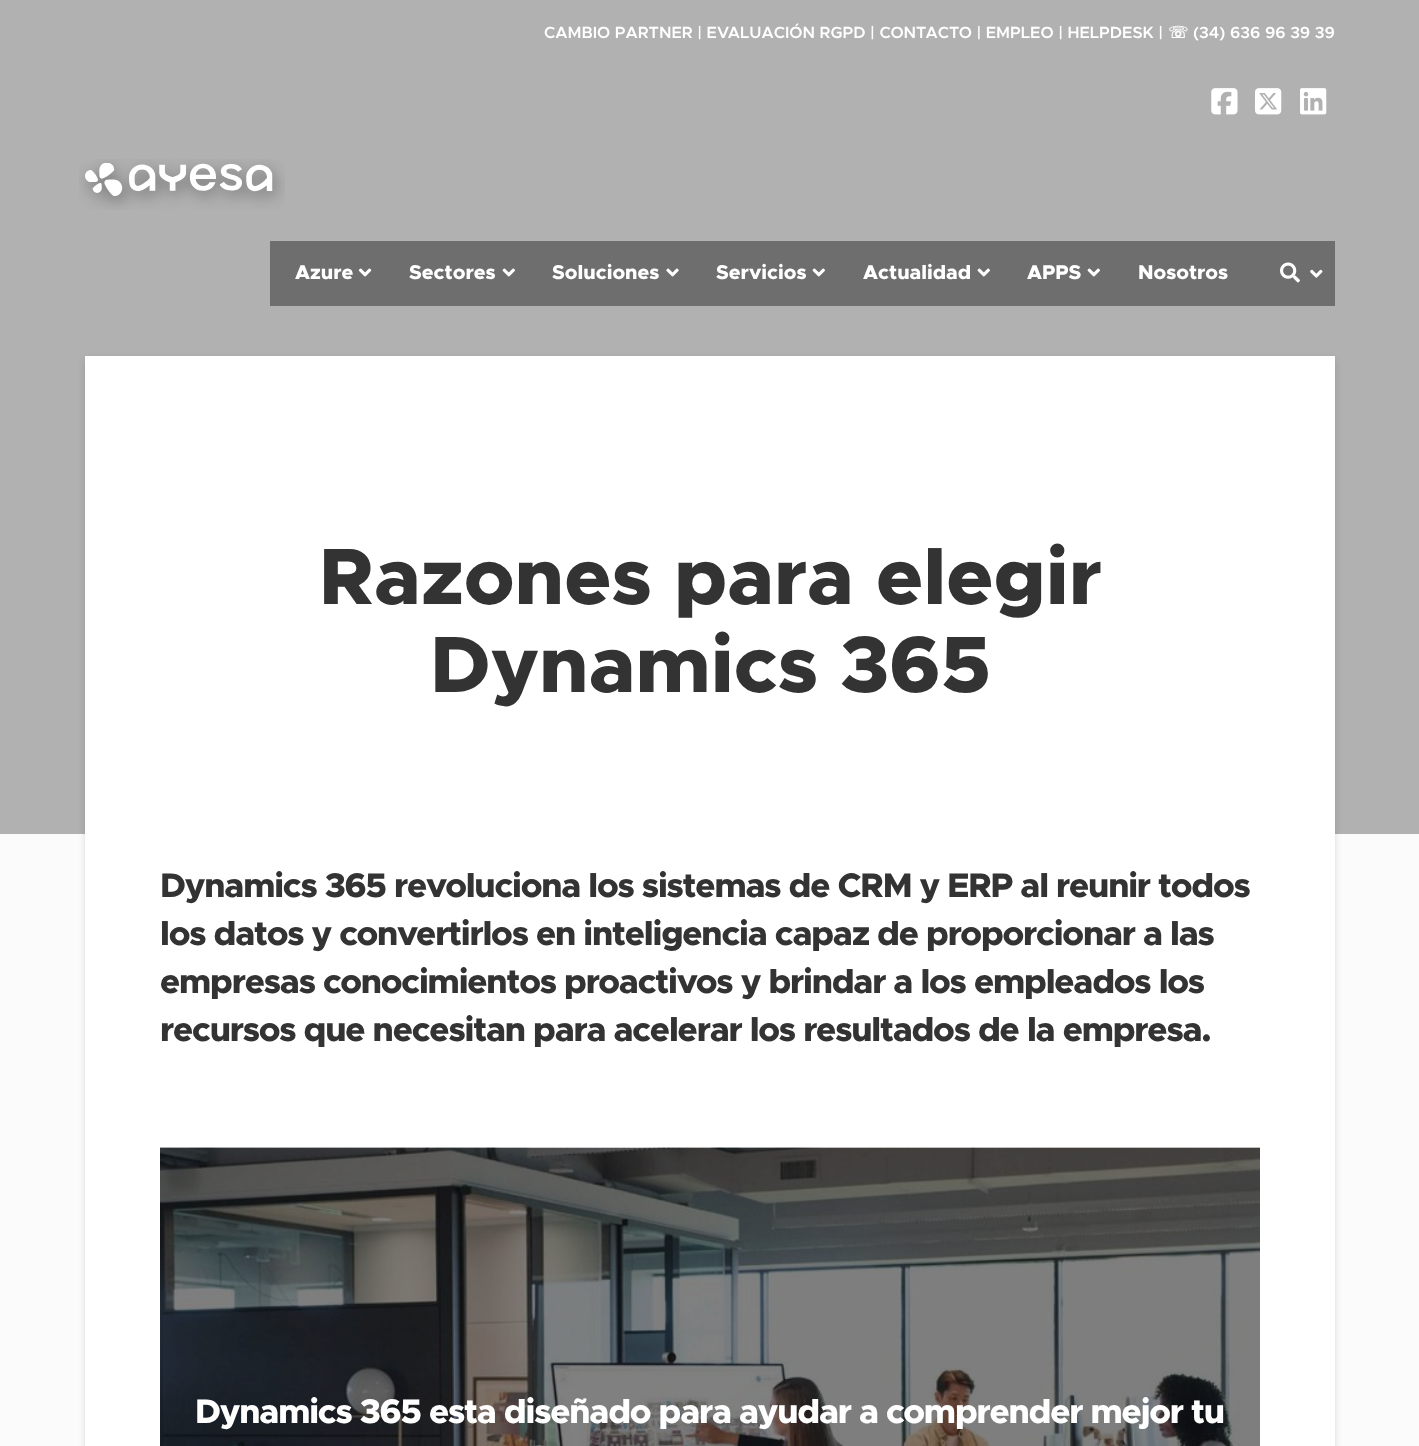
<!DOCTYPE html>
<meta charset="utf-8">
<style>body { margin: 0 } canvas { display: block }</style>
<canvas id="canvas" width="1419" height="1446"></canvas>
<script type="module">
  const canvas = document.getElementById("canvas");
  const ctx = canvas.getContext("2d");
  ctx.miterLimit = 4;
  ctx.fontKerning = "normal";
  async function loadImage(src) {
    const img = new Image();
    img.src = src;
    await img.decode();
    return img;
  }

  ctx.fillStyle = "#fbfbfb";
  ctx.fillRect(0, 0, 1419, 1446);
  ctx.fillStyle = "#b1b1b1";
  ctx.fillRect(0, 0, 1419, 834);
  ctx.font = "600 16.25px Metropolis";
  ctx.fillStyle = "#ffffff";
  ctx.fillText("CAMBIO PARTNER | EVALUACIÓN RGPD | CONTACTO | EMPLEO | HELPDESK |", 544, 38);
  ctx.font = "bold 16.25px DejaVu Sans";
  ctx.fillText("☏", 1168, 38);
  ctx.font = "600 16.25px Metropolis";
  ctx.fillText("(34) 636 96 39 39", 1193, 38);
  ctx.drawImage(await loadImage("img1.png"), 1211, 88, 27, 27);
  ctx.drawImage(await loadImage("img2.png"), 1255, 88, 27, 27);
  ctx.drawImage(await loadImage("img3.png"), 1300, 88, 27, 27);
  ctx.drawImage(await loadImage("img4.png"), 79, 159, 206, 51);
  ctx.fillStyle = "#6e6e6e";
  ctx.fillRect(270, 241, 1065, 65);
  ctx.font = "800 20px Metropolis";
  ctx.fillStyle = "#ffffff";
  ctx.fillText("Azure", 295, 279);
  ctx.drawImage(await loadImage("img5.png"), 358, 268, 14, 9);
  ctx.fillText("Sectores", 409, 279);
  ctx.drawImage(await loadImage("img6.png"), 502, 268, 13, 9);
  ctx.fillText("Soluciones", 552, 279);
  ctx.drawImage(await loadImage("img7.png"), 666, 268, 13, 9);
  ctx.fillText("Servicios", 716, 279);
  ctx.drawImage(await loadImage("img6.png"), 812, 268, 13, 9);
  ctx.fillText("Actualidad", 863, 279);
  ctx.drawImage(await loadImage("img6.png"), 977, 268, 13, 9);
  ctx.fillText("APPS", 1027, 279);
  ctx.drawImage(await loadImage("img6.png"), 1087, 268, 13, 9);
  ctx.fillText("Nosotros", 1138, 279);
  ctx.drawImage(await loadImage("img8.png"), 1280, 262, 20, 21);
  ctx.drawImage(await loadImage("img9.png"), 1310, 269, 13, 9);
  ctx.fillStyle = "rgba(0, 0, 0, 0.13)";
  ctx.filter = "blur(3.5px)";
  ctx.beginPath();
  ctx.roundRect(85, 359, 1250, 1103, 5);
  ctx.fill();
  ctx.filter = "none";
  ctx.fillStyle = "#ffffff";
  ctx.fillRect(85, 356, 1250, 1090);
  ctx.font = "800 80px Metropolis";
  ctx.fillStyle = "#333333";
  ctx.fillText("Razones para elegir", 319, 604);
  ctx.fillText("Dynamics 365", 430, 692);
  ctx.letterSpacing = "-1.2px";
  ctx.font = "800 34.25px Metropolis";
  ctx.fillText("Dynamics 365 revoluciona los sistemas de CRM y ERP al reunir todos", 160, 897);
  ctx.fillText("los datos y convertirlos en inteligencia capaz de proporcionar a las", 160, 945);
  ctx.fillText("empresas conocimientos proactivos y brindar a los empleados los", 160, 993);
  ctx.fillText("recursos que necesitan para acelerar los resultados de la empresa.", 160, 1041);
  ctx.drawImage(await loadImage("img10.png"), 160, 1147, 1100, 299);
  ctx.fillStyle = "#ffffff";
  ctx.fillText("Dynamics 365 esta diseñado para ayudar a comprender mejor tu", 195, 1423);
</script>
